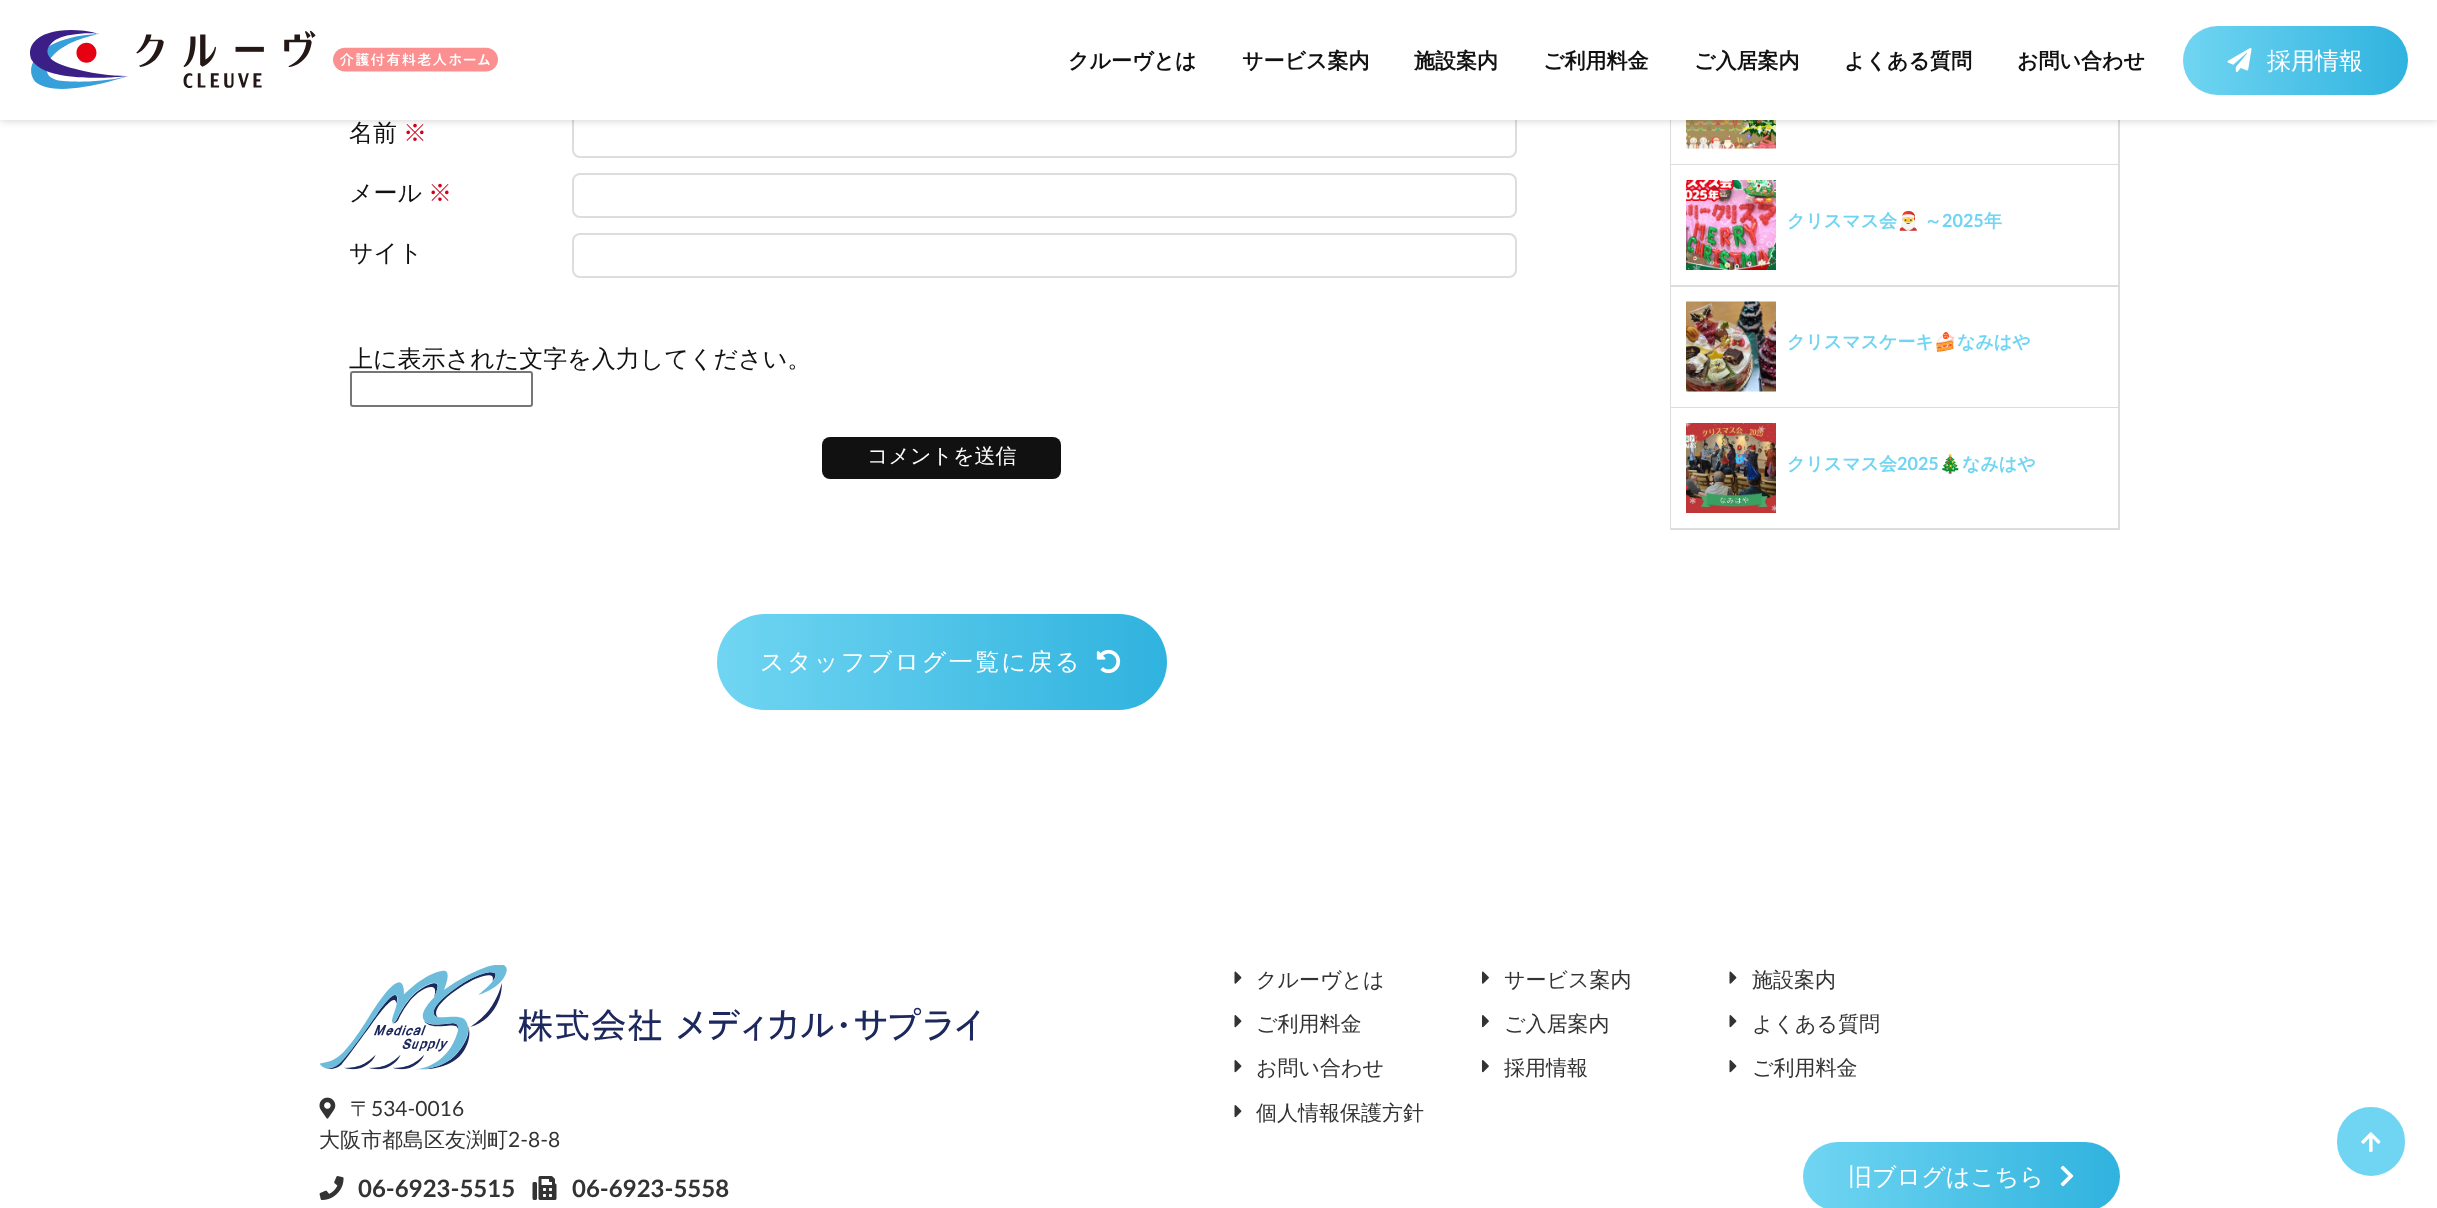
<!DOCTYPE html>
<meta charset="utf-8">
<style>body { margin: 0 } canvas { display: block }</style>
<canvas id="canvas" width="2437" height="1208"></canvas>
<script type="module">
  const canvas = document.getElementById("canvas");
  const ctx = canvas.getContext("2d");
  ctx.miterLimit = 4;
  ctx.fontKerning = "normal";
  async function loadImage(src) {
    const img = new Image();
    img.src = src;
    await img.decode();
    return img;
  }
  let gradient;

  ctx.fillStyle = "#ffffff";
  ctx.fillRect(0, 0, 2437, 1208);
  ctx.beginPath();
  ctx.roundRect(573, 114, 943, 43, 7);
  ctx.strokeStyle = "#dddddd";
  ctx.lineWidth = 2;
  ctx.stroke();
  ctx.fillStyle = "#dddddd";
  ctx.fillRect(2118, 120, 2, 410);
  ctx.fillRect(1670, 120, 1, 410);
  ctx.drawImage(await loadImage("img4.png"), 1686, 120, 90, 29);
  ctx.fillStyle = "rgba(0, 0, 0, 0.2)";
  ctx.filter = "blur(4.5px)";
  ctx.beginPath();
  ctx.rect(0, 0, 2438, 120);
  ctx.fill();
  ctx.filter = "none";
  ctx.fillStyle = "#ffffff";
  ctx.fillRect(0, 0, 2437, 120);
  ctx.drawImage(await loadImage("img1.png"), 30, 30, 468, 59);
  ctx.font = "bold 21px WenQuanYi Zen Hei";
  ctx.fillStyle = "#111111";
  ctx.fillText("クルーヴとは", 1068, 68);
  ctx.fillText("サービス案内", 1242, 68);
  ctx.fillText("施設案内", 1414, 68);
  ctx.fillText("ご利用料金", 1543, 68);
  ctx.fillText("ご入居案内", 1694, 68);
  ctx.fillText("よくある質問", 1844, 68);
  ctx.fillText("お問い合わせ", 2017, 68);
  gradient = ctx.createLinearGradient(2183, 60, 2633, 60);
  gradient.addColorStop(0, "#70d5f2");
  gradient.addColorStop(0.51, "#2eb2de");
  gradient.addColorStop(1, "#70d5f2");
  ctx.fillStyle = gradient;
  ctx.beginPath();
  ctx.roundRect(2183, 26, 225, 69, 34.5);
  ctx.fill();
  ctx.drawImage(await loadImage("img2.png"), 2227, 48, 25, 24);
  ctx.font = "500 24px WenQuanYi Zen Hei";
  ctx.fillStyle = "#ffffff";
  ctx.fillText("採用情報", 2267, 69);
  ctx.fillStyle = "#111111";
  ctx.fillText("名前", 349, 141);
  ctx.fillStyle = "#d0021b";
  ctx.fillText("※", 403, 141);
  ctx.fillStyle = "#111111";
  ctx.fillText("メール", 349, 201);
  ctx.fillStyle = "#d0021b";
  ctx.fillText("※", 428, 201);
  ctx.beginPath();
  ctx.roundRect(573, 174, 943, 43, 7);
  ctx.stroke();
  ctx.fillStyle = "#111111";
  ctx.fillText("サイト", 349, 261);
  ctx.beginPath();
  ctx.roundRect(573, 234, 943, 43, 7);
  ctx.stroke();
  ctx.fillText("上に表示された文字を入力してください。", 349, 367);
  ctx.beginPath();
  ctx.roundRect(351, 372, 181, 34, 2);
  ctx.strokeStyle = "#767676";
  ctx.stroke();
  ctx.beginPath();
  ctx.roundRect(822, 437, 239, 42, 8);
  ctx.fill();
  ctx.font = "500 21px WenQuanYi Zen Hei";
  ctx.fillStyle = "#ffffff";
  ctx.fillText("コメントを送信", 867, 463);
  gradient = ctx.createLinearGradient(717, 662, 1617, 662);
  gradient.addColorStop(0, "#70d5f2");
  gradient.addColorStop(0.51, "#2eb2de");
  gradient.addColorStop(1, "#70d5f2");
  ctx.fillStyle = gradient;
  ctx.beginPath();
  ctx.roundRect(717, 614, 450, 96, 48);
  ctx.fill();
  ctx.letterSpacing = "2.4px";
  ctx.font = "500 24px WenQuanYi Zen Hei";
  ctx.fillStyle = "#ffffff";
  ctx.fillText("スタッフブログ一覧に戻る", 760, 670);
  ctx.drawImage(await loadImage("img3.png"), 1096, 649, 25, 25);
  ctx.fillStyle = "#dddddd";
  ctx.fillRect(1671, 164, 447, 1);
  ctx.fillRect(1671, 285, 447, 2);
  ctx.drawImage(await loadImage("img5.png"), 1686, 180, 90, 90);
  ctx.letterSpacing = "0px";
  ctx.font = "bold 18px WenQuanYi Zen Hei";
  ctx.fillStyle = "#70d5f2";
  ctx.fillText("クリスマス会", 1787, 227);
  ctx.font = "bold 18px Noto Color Emoji";
  ctx.fillText("🎅", 1897, 227);
  ctx.font = "bold 18px WenQuanYi Zen Hei";
  ctx.fillText("～", 1924, 227);
  ctx.font = "bold 18px Lato";
  ctx.fillText("2025", 1942, 227);
  ctx.font = "bold 18px WenQuanYi Zen Hei";
  ctx.fillText("年", 1984, 227);
  ctx.fillStyle = "#dddddd";
  ctx.fillRect(1671, 407, 447, 1);
  ctx.drawImage(await loadImage("img6.png"), 1686, 301, 90, 91);
  ctx.fillStyle = "#70d5f2";
  ctx.fillText("クリスマスケーキ", 1787, 348);
  ctx.font = "bold 18px Noto Color Emoji";
  ctx.fillText("🍰", 1934, 348);
  ctx.font = "bold 18px WenQuanYi Zen Hei";
  ctx.fillText("なみはや", 1957, 348);
  ctx.fillStyle = "#dddddd";
  ctx.fillRect(1671, 528, 447, 2);
  ctx.drawImage(await loadImage("img7.png"), 1686, 423, 90, 90);
  ctx.fillStyle = "#70d5f2";
  ctx.fillText("クリスマス会", 1787, 470);
  ctx.font = "bold 18px Lato";
  ctx.fillText("2025", 1897, 470);
  ctx.font = "bold 18px Noto Color Emoji";
  ctx.fillText("🎄", 1939, 470);
  ctx.font = "bold 18px WenQuanYi Zen Hei";
  ctx.fillText("なみはや", 1962, 470);
  ctx.drawImage(await loadImage("img8.png"), 320, 965, 660, 105);
  ctx.drawImage(await loadImage("img9.png"), 319, 1097, 17, 22);
  ctx.font = "500 21px WenQuanYi Zen Hei";
  ctx.fillStyle = "#333333";
  ctx.fillText("〒", 350, 1116);
  ctx.font = "21px Lato";
  ctx.fillText("534-0016", 371, 1116);
  ctx.font = "500 21px WenQuanYi Zen Hei";
  ctx.fillText("大阪市都島区友渕町", 319, 1147);
  ctx.font = "21px Lato";
  ctx.fillText("2-8-8", 508, 1147);
  ctx.drawImage(await loadImage("img10.png"), 319, 1176, 25, 24);
  ctx.font = "bold 24px Lato";
  ctx.fillText("06-6923-5515", 358, 1197);
  ctx.drawImage(await loadImage("img11.png"), 532, 1176, 25, 24);
  ctx.fillText("06-6923-5558", 572, 1197);
  ctx.drawImage(await loadImage("img12.png"), 1234, 971, 8, 13);
  ctx.font = "500 21px WenQuanYi Zen Hei";
  ctx.fillText("クルーヴとは", 1256, 987);
  ctx.drawImage(await loadImage("img13.png"), 1482, 971, 7, 13);
  ctx.fillText("サービス案内", 1504, 987);
  ctx.drawImage(await loadImage("img12.png"), 1729, 971, 8, 13);
  ctx.fillText("施設案内", 1752, 987);
  ctx.drawImage(await loadImage("img14.png"), 1234, 1015, 8, 13);
  ctx.fillText("ご利用料金", 1256, 1031);
  ctx.drawImage(await loadImage("img15.png"), 1482, 1015, 7, 13);
  ctx.fillText("ご入居案内", 1504, 1031);
  ctx.drawImage(await loadImage("img14.png"), 1729, 1015, 8, 13);
  ctx.fillText("よくある質問", 1752, 1031);
  ctx.drawImage(await loadImage("img14.png"), 1234, 1060, 8, 13);
  ctx.fillText("お問い合わせ", 1256, 1075);
  ctx.drawImage(await loadImage("img15.png"), 1482, 1060, 7, 13);
  ctx.fillText("採用情報", 1504, 1075);
  ctx.drawImage(await loadImage("img14.png"), 1729, 1060, 8, 13);
  ctx.fillText("ご利用料金", 1752, 1075);
  ctx.drawImage(await loadImage("img14.png"), 1234, 1105, 8, 13);
  ctx.fillText("個人情報保護方針", 1256, 1120);
  gradient = ctx.createLinearGradient(1803, 1176, 2436, 1176);
  gradient.addColorStop(0, "#70d5f2");
  gradient.addColorStop(0.51, "#2eb2de");
  gradient.addColorStop(1, "#70d5f2");
  ctx.fillStyle = gradient;
  ctx.beginPath();
  ctx.roundRect(1803, 1142, 317, 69, 34.5);
  ctx.fill();
  ctx.font = "500 24px WenQuanYi Zen Hei";
  ctx.fillStyle = "#ffffff";
  ctx.fillText("旧ブログはこちら", 1848, 1185);
  ctx.drawImage(await loadImage("img16.png"), 2060, 1165, 14, 22);
  ctx.fillStyle = "#70d5f2";
  ctx.beginPath();
  ctx.roundRect(2335.5, 1105.5, 71, 72, 35.5);
  ctx.fill();
  ctx.strokeStyle = "#ffffff";
  ctx.lineWidth = 3;
  ctx.stroke();
  ctx.drawImage(await loadImage("img17.png"), 2361, 1132, 20, 20);
</script>
